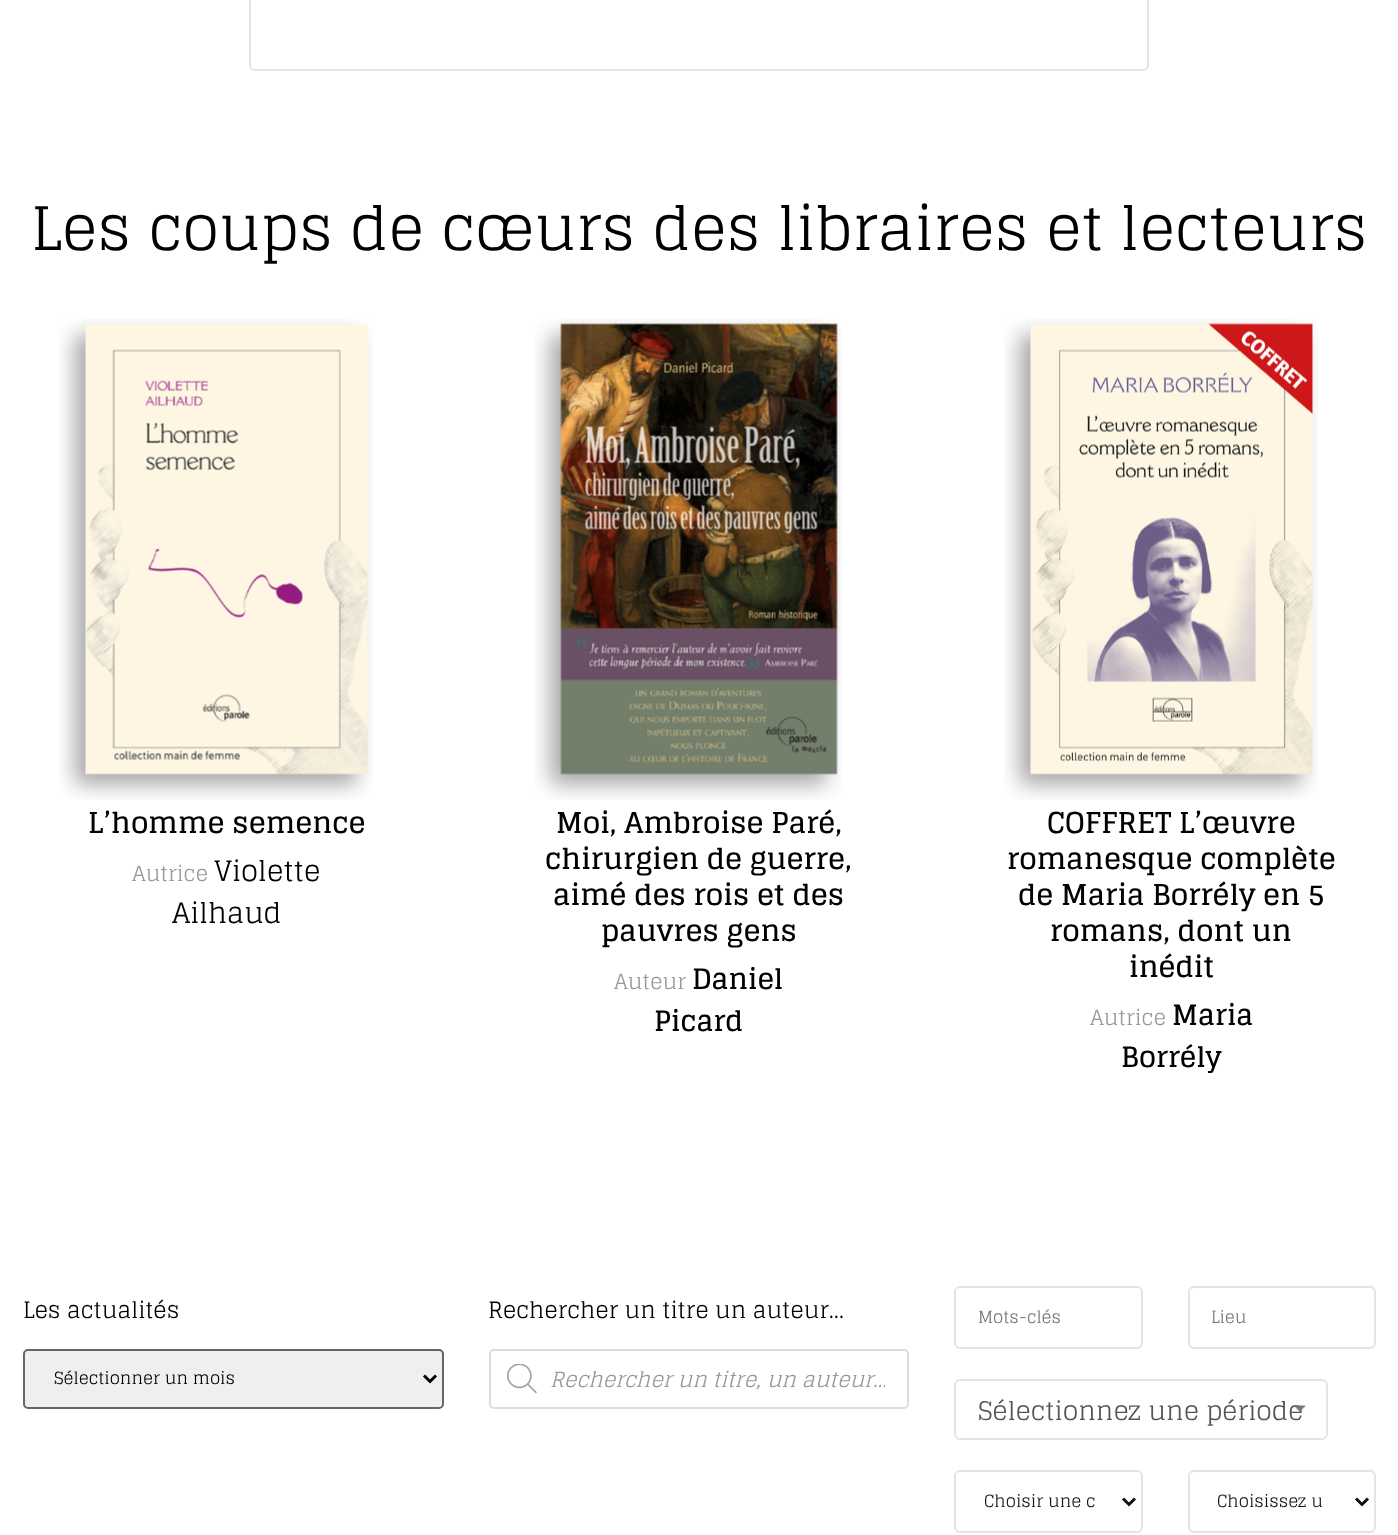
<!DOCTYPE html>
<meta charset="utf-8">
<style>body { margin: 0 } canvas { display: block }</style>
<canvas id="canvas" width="1398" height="1535"></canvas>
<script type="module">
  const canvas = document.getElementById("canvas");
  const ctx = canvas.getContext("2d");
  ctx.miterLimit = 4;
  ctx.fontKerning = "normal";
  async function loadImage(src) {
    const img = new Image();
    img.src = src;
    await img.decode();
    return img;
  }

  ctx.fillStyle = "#ffffff";
  ctx.fillRect(0, 0, 1398, 1535);
  ctx.beginPath();
  ctx.roundRect(250, -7, 898, 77, 5);
  ctx.strokeStyle = "#e4e4e4";
  ctx.lineWidth = 2;
  ctx.stroke();
  ctx.font = "60px Glegoo";
  ctx.fillStyle = "#000000";
  ctx.fillText("Les coups de cœurs des libraires et lecteurs", 31, 250);
  ctx.drawImage(await loadImage("img1.png"), 59, 319, 314, 481);
  ctx.font = "bold 28.75px Glegoo";
  ctx.fillText("L’homme semence", 88, 833);
  ctx.font = "21px Glegoo";
  ctx.fillStyle = "#999999";
  ctx.fillText("Autrice", 132, 881);
  ctx.font = "28px Glegoo";
  ctx.fillStyle = "#000000";
  ctx.fillText("Violette", 214, 881);
  ctx.fillText("Ailhaud", 172, 923);
  ctx.drawImage(await loadImage("img2.png"), 535, 319, 307, 481);
  ctx.font = "bold 28.75px Glegoo";
  ctx.fillText("Moi, Ambroise Paré,", 556, 833);
  ctx.fillText("chirurgien de guerre,", 545, 869);
  ctx.fillText("aimé des rois et des", 553, 905);
  ctx.fillText("pauvres gens", 601, 941);
  ctx.font = "21px Glegoo";
  ctx.fillStyle = "#999999";
  ctx.fillText("Auteur", 614, 989);
  ctx.font = "bold 28px Glegoo";
  ctx.fillStyle = "#000000";
  ctx.fillText("Daniel", 692, 989);
  ctx.fillText("Picard", 654, 1031);
  ctx.drawImage(await loadImage("img3.png"), 1004, 319, 314, 481);
  ctx.font = "bold 28.75px Glegoo";
  ctx.fillText("COFFRET L’œuvre", 1047, 833);
  ctx.fillText("romanesque complète", 1007, 869);
  ctx.fillText("de Maria Borrély en 5", 1018, 905);
  ctx.fillText("romans, dont un", 1050, 941);
  ctx.fillText("inédit", 1129, 977);
  ctx.font = "21px Glegoo";
  ctx.fillStyle = "#999999";
  ctx.fillText("Autrice", 1090, 1025);
  ctx.font = "bold 28px Glegoo";
  ctx.fillStyle = "#000000";
  ctx.fillText("Maria", 1172, 1025);
  ctx.fillText("Borrély", 1121, 1067);
  ctx.font = "22.5px Glegoo";
  ctx.fillText("Les actualités", 23, 1318);
  ctx.fillStyle = "#efefef";
  ctx.beginPath();
  ctx.roundRect(24, 1350, 419, 58, 4);
  ctx.fill();
  ctx.strokeStyle = "#666666";
  ctx.stroke();
  ctx.beginPath();
  ctx.moveTo(424, 1375.5);
  ctx.lineTo(430, 1381.5);
  ctx.lineTo(436, 1375.5);
  ctx.strokeStyle = "#000000";
  ctx.lineWidth = 3;
  ctx.stroke();
  ctx.font = "16.75px Glegoo";
  ctx.fillStyle = "#000000";
  ctx.fillText("Sélectionner un mois", 54, 1384);
  ctx.font = "22.5px Glegoo";
  ctx.fillText("Rechercher un titre un auteur…", 488, 1318);
  ctx.beginPath();
  ctx.roundRect(490, 1350, 418, 58, 4);
  ctx.strokeStyle = "#dddddd";
  ctx.lineWidth = 2;
  ctx.stroke();
  ctx.drawImage(await loadImage("img4.png"), 507, 1364, 30, 30);
  ctx.save();
  ctx.beginPath();
  ctx.rect(551, 1359, 334, 38);
  ctx.clip();
  ctx.font = "italic 21px Glegoo";
  ctx.fillStyle = "#999999";
  ctx.fillText("Rechercher un titre, un auteur...", 550, 1387);
  ctx.restore();
  ctx.beginPath();
  ctx.roundRect(955, 1287, 187, 61, 5);
  ctx.strokeStyle = "#e4e4e4";
  ctx.stroke();
  ctx.font = "16.75px Glegoo";
  ctx.fillStyle = "#757575";
  ctx.fillText("Mots-clés", 978, 1323);
  ctx.beginPath();
  ctx.roundRect(1189, 1287, 186, 61, 5);
  ctx.stroke();
  ctx.fillText("Lieu", 1211, 1323);
  ctx.beginPath();
  ctx.roundRect(955, 1380, 372, 59, 5);
  ctx.stroke();
  ctx.font = "25.5px Glegoo";
  ctx.fillStyle = "#555555";
  ctx.fillText("Sélectionnez une période", 978, 1420);
  ctx.drawImage(await loadImage("img5.png"), 1294, 1405, 12, 7);
  ctx.beginPath();
  ctx.roundRect(955, 1471, 187, 61, 5);
  ctx.stroke();
  ctx.beginPath();
  ctx.moveTo(1123, 1498.5);
  ctx.lineTo(1129, 1504.5);
  ctx.lineTo(1135, 1498.5);
  ctx.strokeStyle = "#111111";
  ctx.lineWidth = 3;
  ctx.stroke();
  ctx.save();
  ctx.beginPath();
  ctx.rect(984, 1485, 111, 33);
  ctx.clip();
  ctx.font = "16.75px Glegoo";
  ctx.fillStyle = "#111111";
  ctx.fillText("Choisir une c", 984, 1507);
  ctx.restore();
  ctx.beginPath();
  ctx.roundRect(1189, 1471, 186, 61, 5);
  ctx.strokeStyle = "#e4e4e4";
  ctx.lineWidth = 2;
  ctx.stroke();
  ctx.beginPath();
  ctx.moveTo(1356, 1498.5);
  ctx.lineTo(1362, 1504.5);
  ctx.lineTo(1368, 1498.5);
  ctx.strokeStyle = "#111111";
  ctx.lineWidth = 3;
  ctx.stroke();
  ctx.font = "16.75px Glegoo";
  ctx.fillStyle = "#111111";
  ctx.fillText("Choisissez u", 1217, 1507);
</script>
